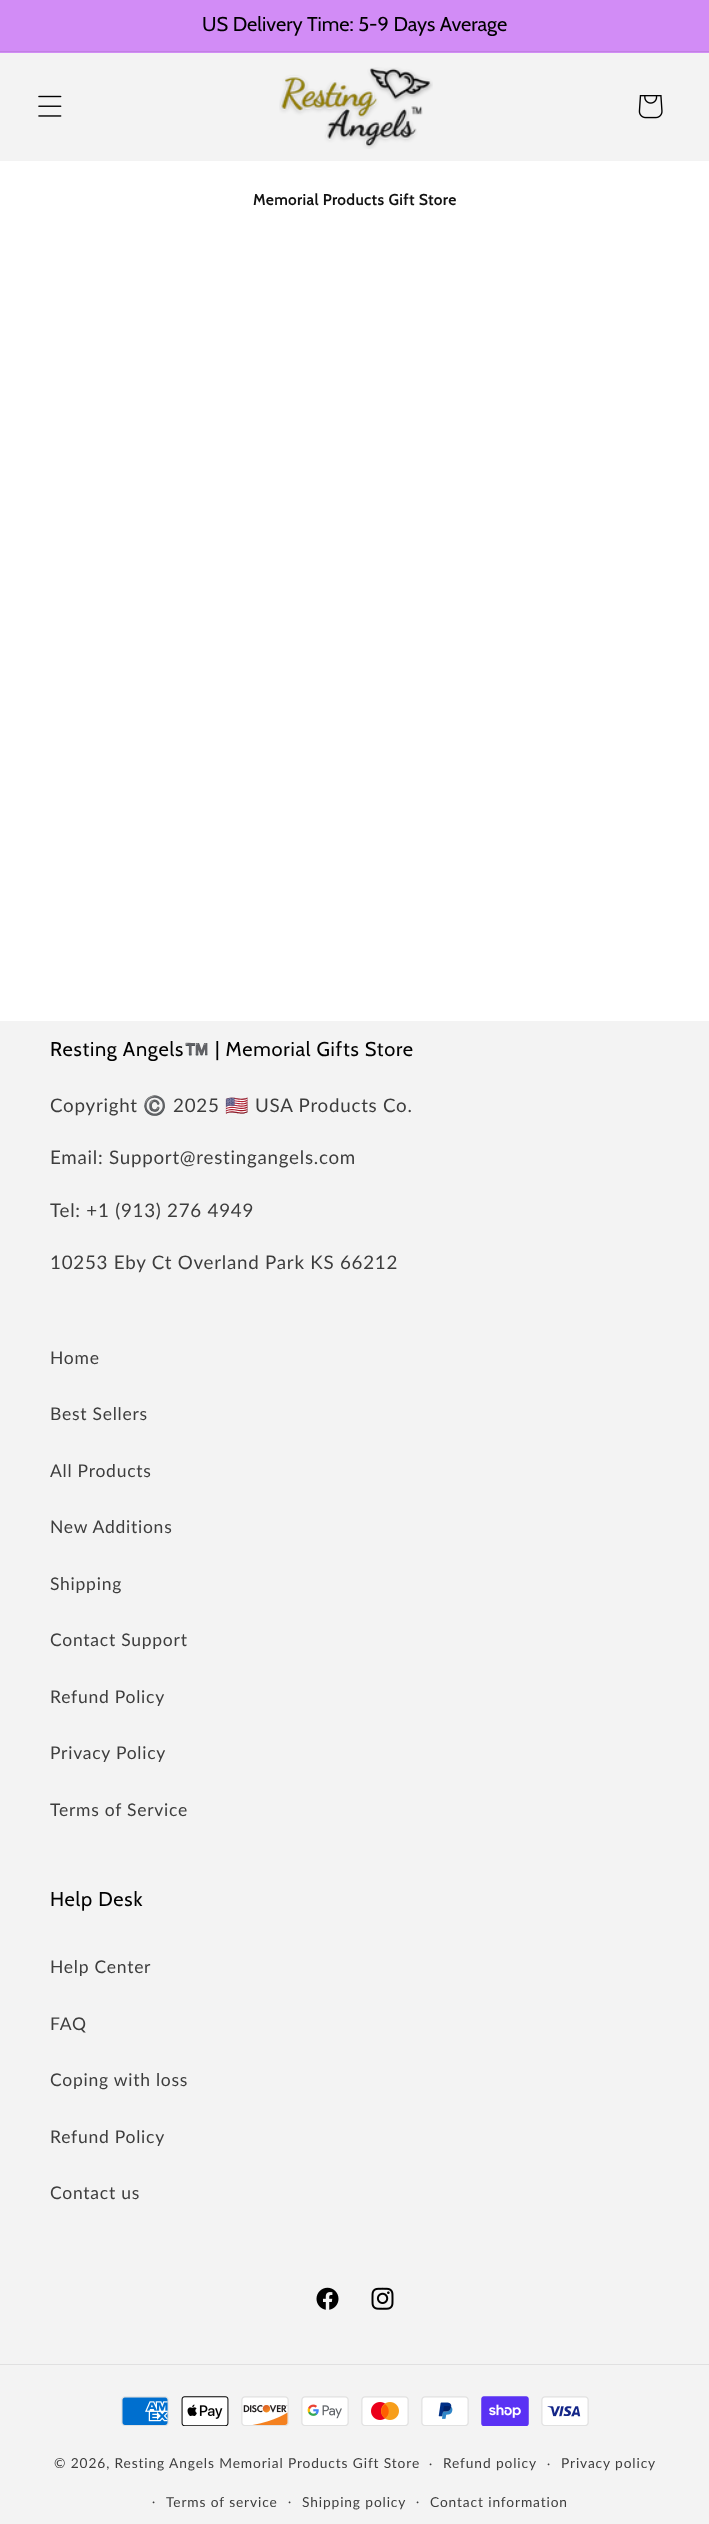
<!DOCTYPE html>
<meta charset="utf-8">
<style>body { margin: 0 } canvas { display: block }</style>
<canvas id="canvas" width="709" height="2524"></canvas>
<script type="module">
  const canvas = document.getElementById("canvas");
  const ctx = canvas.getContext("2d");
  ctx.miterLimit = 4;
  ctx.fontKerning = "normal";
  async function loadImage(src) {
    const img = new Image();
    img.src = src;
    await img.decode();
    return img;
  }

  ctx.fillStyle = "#ffffff";
  ctx.fillRect(0, 0, 709, 2524);
  ctx.fillStyle = "#d28cf6";
  ctx.fillRect(0, 0, 709, 53);
  ctx.fillStyle = "#c181e2";
  ctx.fillRect(0, 51, 709, 1);
  ctx.font = "20px Cabin";
  ctx.fillStyle = "#000000";
  ctx.fillText("US Delivery Time: 5-9 Days Average", 202, 31);
  ctx.fillStyle = "#f3f3f3";
  ctx.fillRect(0, 53, 709, 108);
  ctx.drawImage(await loadImage("img1.png"), 38, 95, 24, 22);
  ctx.drawImage(await loadImage("img2.png"), 279, 67, 154, 82);
  ctx.drawImage(await loadImage("img3.png"), 638, 95, 25, 24);
  ctx.letterSpacing = "0.75px";
  ctx.font = "bold 15px Cabin";
  ctx.fillStyle = "#121212";
  ctx.fillText("Memorial Products Gift Store", 253, 205);
  ctx.fillStyle = "#f3f3f3";
  ctx.fillRect(0, 1021, 709, 1503);
  ctx.font = "20px Cabin";
  ctx.fillStyle = "#000000";
  ctx.fillText("Resting Angels", 50, 1056);
  ctx.font = "20px Noto Color Emoji";
  ctx.fillText("™️", 184, 1056);
  ctx.font = "20px Cabin";
  ctx.fillText("| Memorial Gifts Store", 215, 1056);
  ctx.font = "18.75px Lato";
  ctx.fillStyle = "#3d3d3d";
  ctx.fillText("Copyright", 50, 1112);
  ctx.font = "18.75px Noto Color Emoji";
  ctx.fillText("©️", 143, 1112);
  ctx.font = "18.75px Lato";
  ctx.fillText("2025", 173, 1112);
  ctx.font = "18.75px Noto Color Emoji";
  ctx.fillText("🇺🇸", 225, 1112);
  ctx.font = "18.75px Lato";
  ctx.fillText("USA Products Co.", 255, 1112);
  ctx.fillText("Email: Support@restingangels.com", 50, 1164);
  ctx.fillText("Tel: +1 (913) 276 4949", 50, 1217);
  ctx.fillText("10253 Eby Ct Overland Park KS 66212", 50, 1269);
  ctx.font = "17.5px Lato";
  ctx.fillText("Home", 50, 1364);
  ctx.fillText("Best Sellers", 50, 1420);
  ctx.fillText("All Products", 50, 1477);
  ctx.fillText("New Additions", 50, 1533);
  ctx.fillText("Shipping", 50, 1590);
  ctx.fillText("Contact Support", 50, 1646);
  ctx.fillText("Refund Policy", 50, 1703);
  ctx.fillText("Privacy Policy", 50, 1759);
  ctx.fillText("Terms of Service", 50, 1816);
  ctx.font = "20px Cabin";
  ctx.fillStyle = "#000000";
  ctx.fillText("Help Desk", 50, 1906);
  ctx.font = "17.5px Lato";
  ctx.fillStyle = "#3d3d3d";
  ctx.fillText("Help Center", 50, 1973);
  ctx.fillText("FAQ", 50, 2030);
  ctx.fillText("Coping with loss", 50, 2086);
  ctx.fillText("Refund Policy", 50, 2143);
  ctx.fillText("Contact us", 50, 2199);
  ctx.drawImage(await loadImage("img4.png"), 316, 2287, 23, 23);
  ctx.drawImage(await loadImage("img5.png"), 371, 2287, 23, 23);
  ctx.fillStyle = "#e0e0e0";
  ctx.fillRect(0, 2364, 709, 1);
  ctx.drawImage(await loadImage("img6.png"), 121, 2396, 48, 30);
  ctx.drawImage(await loadImage("img7.png"), 181, 2396, 48, 30);
  ctx.drawImage(await loadImage("img8.png"), 241, 2396, 48, 30);
  ctx.drawImage(await loadImage("img9.png"), 301, 2396, 48, 30);
  ctx.drawImage(await loadImage("img10.png"), 361, 2396, 48, 30);
  ctx.drawImage(await loadImage("img11.png"), 421, 2396, 48, 30);
  ctx.drawImage(await loadImage("img12.png"), 481, 2396, 48, 30);
  ctx.drawImage(await loadImage("img13.png"), 541, 2396, 48, 30);
  ctx.letterSpacing = "0.88px";
  ctx.font = "13.75px Lato";
  ctx.fillStyle = "#3d3d3d";
  ctx.fillText("© 2026, Resting Angels Memorial Products Gift Store", 54, 2468);
  ctx.font = "12px Lato";
  ctx.fillText("·", 429, 2468);
  ctx.font = "13.75px Lato";
  ctx.fillText("Refund policy", 443, 2468);
  ctx.font = "12px Lato";
  ctx.fillText("·", 547, 2468);
  ctx.font = "13.75px Lato";
  ctx.fillText("Privacy policy", 561, 2468);
  ctx.font = "12px Lato";
  ctx.fillText("·", 152, 2506);
  ctx.font = "13.75px Lato";
  ctx.fillText("Terms of service", 166, 2507);
  ctx.font = "12px Lato";
  ctx.fillText("·", 288, 2506);
  ctx.font = "13.75px Lato";
  ctx.fillText("Shipping policy", 302, 2507);
  ctx.font = "12px Lato";
  ctx.fillText("·", 416, 2506);
  ctx.font = "13.75px Lato";
  ctx.fillText("Contact information", 430, 2507);
</script>
